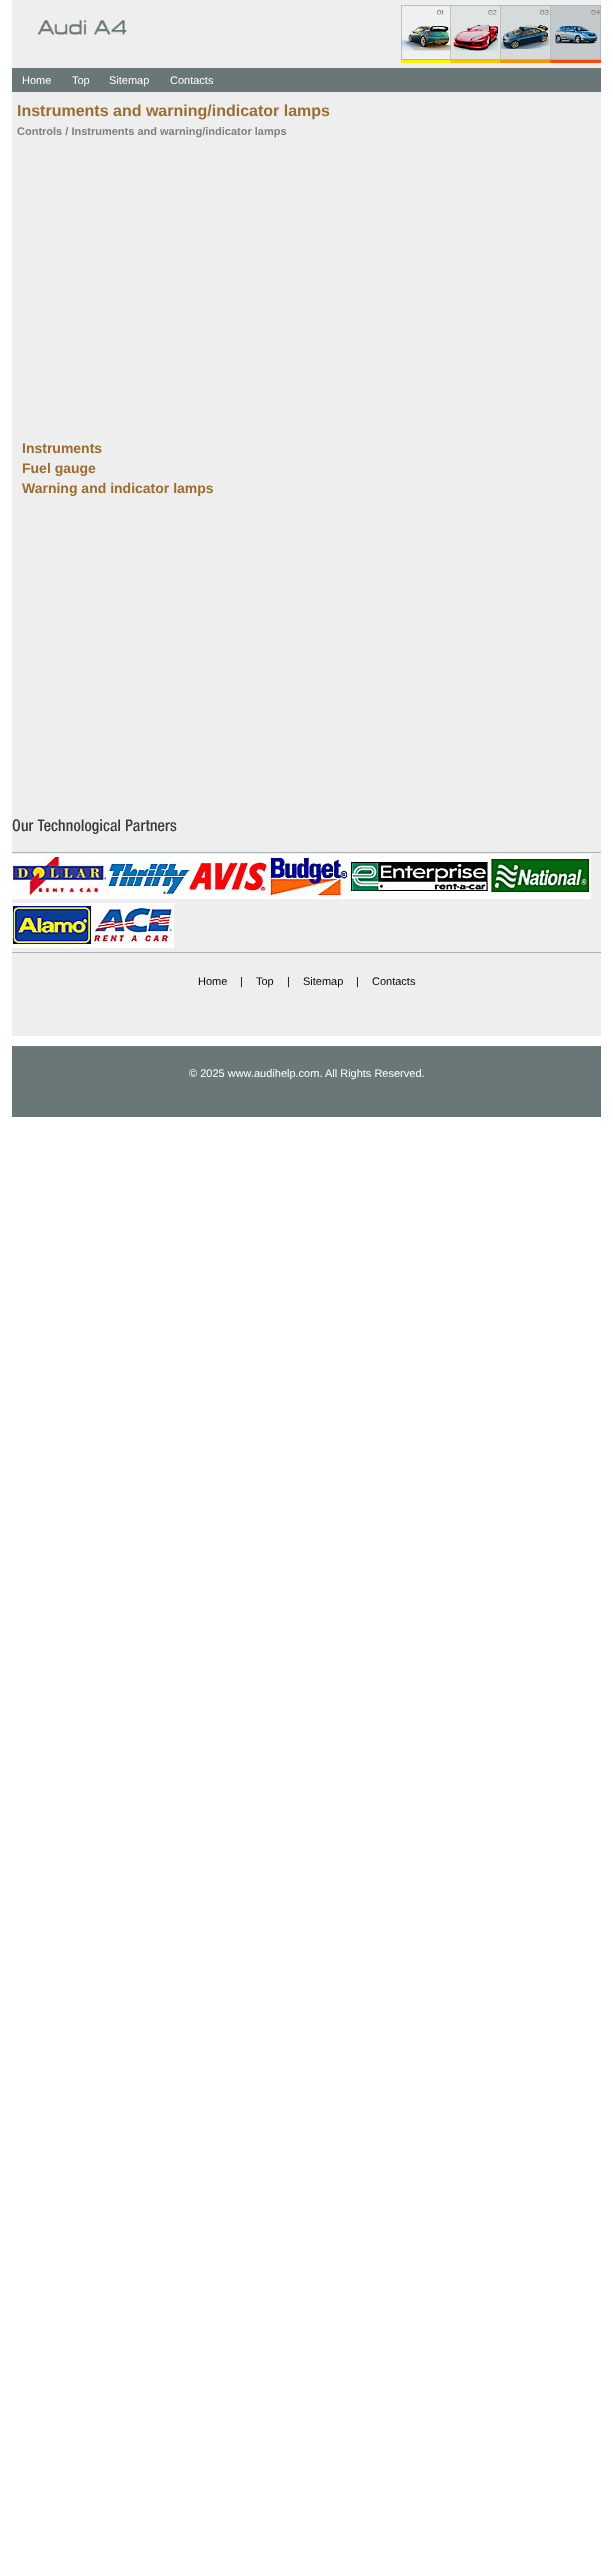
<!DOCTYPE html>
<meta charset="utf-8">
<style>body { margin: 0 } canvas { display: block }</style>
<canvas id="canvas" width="613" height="2557"></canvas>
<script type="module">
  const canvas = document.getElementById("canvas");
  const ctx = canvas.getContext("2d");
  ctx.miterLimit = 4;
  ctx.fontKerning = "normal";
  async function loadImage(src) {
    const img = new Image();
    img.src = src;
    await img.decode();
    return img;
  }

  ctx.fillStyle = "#ffffff";
  ctx.fillRect(0, 0, 613, 2557);
  ctx.fillStyle = "#eeeeee";
  ctx.fillRect(12, 0, 589, 1036);
  ctx.drawImage(await loadImage("img1.png"), 37, 20, 90, 15);
  ctx.drawImage(await loadImage("img2.png"), 401, 5, 50, 58);
  ctx.drawImage(await loadImage("img3.png"), 451, 5, 50, 58);
  ctx.drawImage(await loadImage("img4.png"), 501, 5, 50, 58);
  ctx.drawImage(await loadImage("img5.png"), 551, 5, 50, 58);
  ctx.fillStyle = "#697779";
  ctx.fillRect(12, 68, 589, 24);
  ctx.font = "11px Liberation Sans";
  ctx.fillStyle = "#ffffff";
  ctx.fillText("Home", 22, 84);
  ctx.fillText("Top", 72, 84);
  ctx.fillText("Sitemap", 109, 84);
  ctx.fillText("Contacts", 170, 84);
  ctx.font = "bold 16px Liberation Sans";
  ctx.fillStyle = "#9d6d2e";
  ctx.fillText("Instruments and warning/indicator lamps", 17, 116);
  ctx.font = "bold 11px Liberation Sans";
  ctx.fillStyle = "#7a8282";
  ctx.fillText("Controls / Instruments and warning/indicator lamps", 17, 135);
  ctx.font = "bold 14px Liberation Sans";
  ctx.fillStyle = "#9d6d2e";
  ctx.fillText("Instruments", 22, 453);
  ctx.fillText("Fuel gauge", 22, 473);
  ctx.fillText("Warning and indicator lamps", 22, 493);
  ctx.fillStyle = "#abb5b6";
  ctx.fillRect(12, 852, 589, 1);
  ctx.drawImage(await loadImage("img6.png"), 12, 819, 165, 15);
  ctx.drawImage(await loadImage("img7.png"), 12, 854, 94, 45);
  ctx.drawImage(await loadImage("img8.png"), 106, 854, 83, 45);
  ctx.drawImage(await loadImage("img9.png"), 189, 854, 80, 45);
  ctx.drawImage(await loadImage("img10.png"), 269, 854, 80, 45);
  ctx.drawImage(await loadImage("img11.png"), 349, 854, 141, 45);
  ctx.drawImage(await loadImage("img12.png"), 490, 854, 101, 45);
  ctx.drawImage(await loadImage("img13.png"), 12, 903, 81, 45);
  ctx.drawImage(await loadImage("img14.png"), 93, 903, 81, 45);
  ctx.fillRect(12, 952, 589, 1);
  ctx.font = "11px Liberation Sans";
  ctx.fillStyle = "#060602";
  ctx.fillText("Home", 198, 985);
  ctx.fillText("|", 240, 985);
  ctx.fillText("Top", 256, 985);
  ctx.fillText("|", 287, 985);
  ctx.fillText("Sitemap", 303, 985);
  ctx.fillText("|", 356, 985);
  ctx.fillText("Contacts", 372, 985);
  ctx.fillStyle = "#697779";
  ctx.fillRect(12, 1046, 589, 71);
  ctx.fillStyle = "#ffffff";
  ctx.fillText("© 2025 www.audihelp.com. All Rights Reserved.", 189, 1077);
</script>
